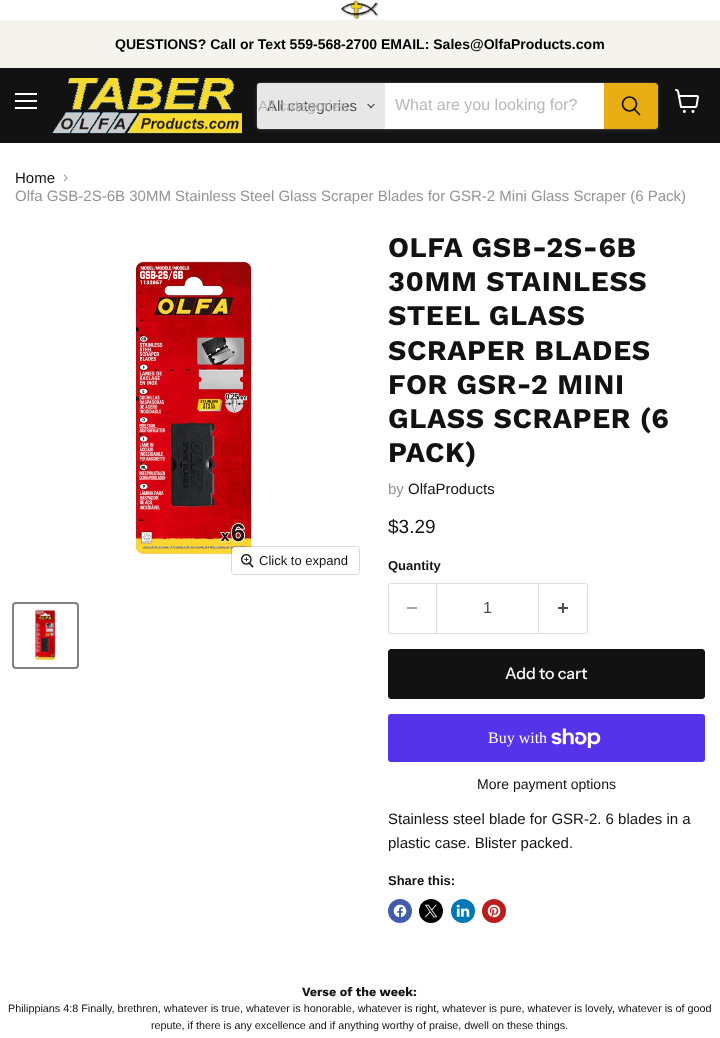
<!DOCTYPE html>
<meta charset="utf-8">
<style>body { margin: 0 } canvas { display: block }</style>
<canvas id="canvas" width="720" height="1038"></canvas>
<script type="module">
  const canvas = document.getElementById("canvas");
  const ctx = canvas.getContext("2d");
  ctx.miterLimit = 4;
  ctx.fontKerning = "normal";
  async function loadImage(src) {
    const img = new Image();
    img.src = src;
    await img.decode();
    return img;
  }

  ctx.fillStyle = "#ffffff";
  ctx.fillRect(0, 0, 720, 1038);
  ctx.drawImage(await loadImage("img1.png"), 340, 0, 39, 20);
  ctx.fillStyle = "#f5f3ed";
  ctx.fillRect(0, 20, 720, 48);
  ctx.font = "bold 14.05px Liberation Sans";
  ctx.fillStyle = "#000000";
  ctx.fillText("QUESTIONS? Call or Text 559-568-2700 EMAIL: Sales@OlfaProducts.com", 115, 49);
  ctx.fillStyle = "#121212";
  ctx.fillRect(0, 68, 720, 75);
  ctx.fillStyle = "#ffffff";
  ctx.fillRect(15, 93, 22, 2);
  ctx.fillRect(15, 100, 22, 2);
  ctx.fillRect(15, 107, 22, 2);
  ctx.drawImage(await loadImage("img2.png"), 52, 78, 190, 56);
  ctx.fillStyle = "rgba(128, 128, 128, 0.11)";
  ctx.filter = "blur(1.5px)";
  ctx.beginPath();
  ctx.roundRect(256, 84, 403, 48, 4);
  ctx.fill();
  ctx.filter = "none";
  ctx.beginPath();
  ctx.roundRect(256.5, 82.5, 402, 47, 3.5);
  ctx.strokeStyle = "rgba(128, 128, 128, 0.2)";
  ctx.stroke();
  ctx.fillStyle = "#e7e7e7";
  ctx.beginPath();
  ctx.roundRect(257, 83, 128, 46, [3, 0, 0, 3]);
  ctx.fill();
  ctx.font = "15px Liberation Sans";
  ctx.fillStyle = "#4d4d4d";
  ctx.fillText("All categories", 267, 111);
  ctx.fillStyle = "#b8b8b8";
  ctx.fillText("All categories", 258, 111);
  ctx.drawImage(await loadImage("img3.png"), 367, 103, 8, 6);
  ctx.fillStyle = "#ffffff";
  ctx.fillRect(385, 83, 219, 46);
  ctx.font = "16px Liberation Sans";
  ctx.fillStyle = "#b8b8b8";
  ctx.fillText("What are you looking for?", 395, 110);
  ctx.fillStyle = "#e9ad14";
  ctx.beginPath();
  ctx.roundRect(604.5, 83.5, 53, 45, [0, 2.5, 2.5, 0]);
  ctx.fill();
  ctx.strokeStyle = "#e9ad14";
  ctx.stroke();
  ctx.beginPath();
  ctx.moveTo(639.5, 114.5);
  ctx.lineTo(634.5, 109.5);
  ctx.strokeStyle = "#121212";
  ctx.lineWidth = 1.7;
  ctx.lineCap = "round";
  ctx.stroke();
  ctx.beginPath();
  ctx.arc(629.5, 104, 7, 0, Math.PI * 2);
  ctx.stroke();
  ctx.drawImage(await loadImage("img4.png"), 675, 89, 24, 24);
  ctx.font = "15px Liberation Sans";
  ctx.fillStyle = "#121212";
  ctx.fillText("Home", 15, 183);
  ctx.drawImage(await loadImage("img5.png"), 63, 174, 5, 8);
  ctx.fillStyle = "#949494";
  ctx.fillText("Olfa GSB-2S-6B 30MM Stainless Steel Glass Scraper Blades for GSR-2 Mini Glass Scraper (6 Pack)", 15, 201);
  ctx.drawImage(await loadImage("img6.png"), 133, 260, 121, 295);
  ctx.beginPath();
  ctx.roundRect(231.5, 546.5, 128, 28, 3.5);
  ctx.strokeStyle = "rgba(0, 0, 0, 0.15)";
  ctx.lineWidth = 1;
  ctx.stroke();
  ctx.fillStyle = "rgba(255, 255, 255, 0.9)";
  ctx.beginPath();
  ctx.roundRect(232, 547, 127, 27, 3);
  ctx.fill();
  ctx.drawImage(await loadImage("img7.png"), 241, 554, 13, 14);
  ctx.font = "13px Liberation Sans";
  ctx.fillStyle = "#121212";
  ctx.fillText("Click to expand", 259, 565);
  ctx.beginPath();
  ctx.roundRect(13, 603, 65, 65, 3);
  ctx.strokeStyle = "#818181";
  ctx.lineWidth = 2;
  ctx.stroke();
  ctx.drawImage(await loadImage("img8.png"), 33, 605, 26, 57);
  ctx.letterSpacing = "0.6px";
  ctx.font = "bold 28.5px Work Sans";
  ctx.fillText("OLFA GSB-2S-6B", 388, 257);
  ctx.fillText("30MM STAINLESS", 388, 291);
  ctx.fillText("STEEL GLASS", 388, 325);
  ctx.fillText("SCRAPER BLADES", 388, 360);
  ctx.fillText("FOR GSR-2 MINI", 388, 394);
  ctx.fillText("GLASS SCRAPER (6", 388, 428);
  ctx.fillText("PACK)", 388, 462);
  ctx.letterSpacing = "0px";
  ctx.font = "15px Liberation Sans";
  ctx.fillStyle = "#949494";
  ctx.fillText("by", 388, 494);
  ctx.fillStyle = "#121212";
  ctx.fillText("OlfaProducts", 408, 494);
  ctx.font = "19px Liberation Sans";
  ctx.fillText("$3.29", 388, 533);
  ctx.font = "bold 13px Liberation Sans";
  ctx.fillText("Quantity", 388, 570);
  ctx.fillStyle = "#dddddd";
  ctx.beginPath();
  ctx.moveTo(391, 583);
  ctx.lineTo(436, 583);
  ctx.lineTo(436, 634);
  ctx.lineTo(391, 634);
  ctx.bezierCurveTo(389, 634, 388, 633, 388, 631);
  ctx.lineTo(388, 586);
  ctx.bezierCurveTo(388, 584, 389, 583, 391, 583);
  ctx.closePath();
  ctx.moveTo(391, 584);
  ctx.lineTo(436, 584);
  ctx.lineTo(436, 633);
  ctx.lineTo(391, 633);
  ctx.bezierCurveTo(390, 633, 389, 632, 389, 631);
  ctx.lineTo(389, 586);
  ctx.bezierCurveTo(389, 585, 390, 584, 391, 584);
  ctx.closePath();
  ctx.fill("evenodd");
  ctx.fillStyle = "#a6a6a6";
  ctx.fillRect(407, 607, 10, 2);
  ctx.strokeStyle = "#dddddd";
  ctx.lineWidth = 1;
  ctx.strokeRect(436.5, 583.5, 102, 50);
  ctx.font = "16px Liberation Sans";
  ctx.fillStyle = "#4d4d4d";
  ctx.fillText("1", 483, 613);
  ctx.fillStyle = "#dddddd";
  ctx.beginPath();
  ctx.moveTo(539, 583);
  ctx.lineTo(585, 583);
  ctx.bezierCurveTo(587, 583, 588, 584, 588, 586);
  ctx.lineTo(588, 631);
  ctx.bezierCurveTo(588, 633, 587, 634, 585, 634);
  ctx.lineTo(539, 634);
  ctx.closePath();
  ctx.moveTo(539, 584);
  ctx.lineTo(585, 584);
  ctx.bezierCurveTo(586, 584, 587, 585, 587, 586);
  ctx.lineTo(587, 631);
  ctx.bezierCurveTo(587, 632, 586, 633, 585, 633);
  ctx.lineTo(539, 633);
  ctx.closePath();
  ctx.fill("evenodd");
  ctx.drawImage(await loadImage("img9.png"), 558, 603, 10, 10);
  ctx.fillStyle = "#121212";
  ctx.beginPath();
  ctx.roundRect(388.5, 649.5, 316, 49, 2.5);
  ctx.fill();
  ctx.strokeStyle = "#121212";
  ctx.stroke();
  ctx.font = "500 16px Instrument Sans";
  ctx.fillStyle = "#ffffff";
  ctx.fillText("Add to cart", 505, 679);
  ctx.fillStyle = "#5433eb";
  ctx.beginPath();
  ctx.roundRect(388, 714, 317, 48, 3);
  ctx.fill();
  ctx.font = "16px Liberation Serif";
  ctx.fillStyle = "#ffffff";
  ctx.fillText("Buy with", 488, 743);
  ctx.drawImage(await loadImage("img10.png"), 551, 728, 50, 20);
  ctx.font = "14.05px Liberation Sans";
  ctx.fillStyle = "#121212";
  ctx.fillText("More payment options", 477, 789);
  ctx.font = "15px Liberation Sans";
  ctx.fillText("Stainless steel blade for GSR-2. 6 blades in a", 388, 824);
  ctx.fillText("plastic case. Blister packed.", 388, 848);
  ctx.font = "bold 13px Liberation Sans";
  ctx.fillText("Share this:", 388, 885);
  ctx.fillStyle = "#425dab";
  ctx.beginPath();
  ctx.arc(400, 911, 12, 0, Math.PI * 2);
  ctx.fill();
  ctx.drawImage(await loadImage("img11.png"), 393, 904, 14, 14);
  ctx.fillStyle = "#000000";
  ctx.beginPath();
  ctx.arc(431, 911, 12, 0, Math.PI * 2);
  ctx.fill();
  ctx.drawImage(await loadImage("img12.png"), 424, 904, 14, 14);
  ctx.fillStyle = "#0077b5";
  ctx.beginPath();
  ctx.arc(463, 911, 12, 0, Math.PI * 2);
  ctx.fill();
  ctx.drawImage(await loadImage("img13.png"), 456, 904, 14, 13);
  ctx.fillStyle = "#bd1c1c";
  ctx.beginPath();
  ctx.arc(494, 911, 12, 0, Math.PI * 2);
  ctx.fill();
  ctx.drawImage(await loadImage("img14.png"), 487, 904, 14, 14);
  ctx.font = "bold 12.5px Work Sans";
  ctx.fillStyle = "#121212";
  ctx.fillText("Verse of the week:", 302, 996);
  ctx.font = "10.8px Liberation Sans";
  ctx.fillText("Philippians 4:8 Finally, brethren, whatever is true, whatever is honorable, whatever is right, whatever is pure, whatever is lovely, whatever is of good", 8, 1012);
  ctx.fillText("repute, if there is any excellence and if anything worthy of praise, dwell on these things.", 151, 1029);
</script>
